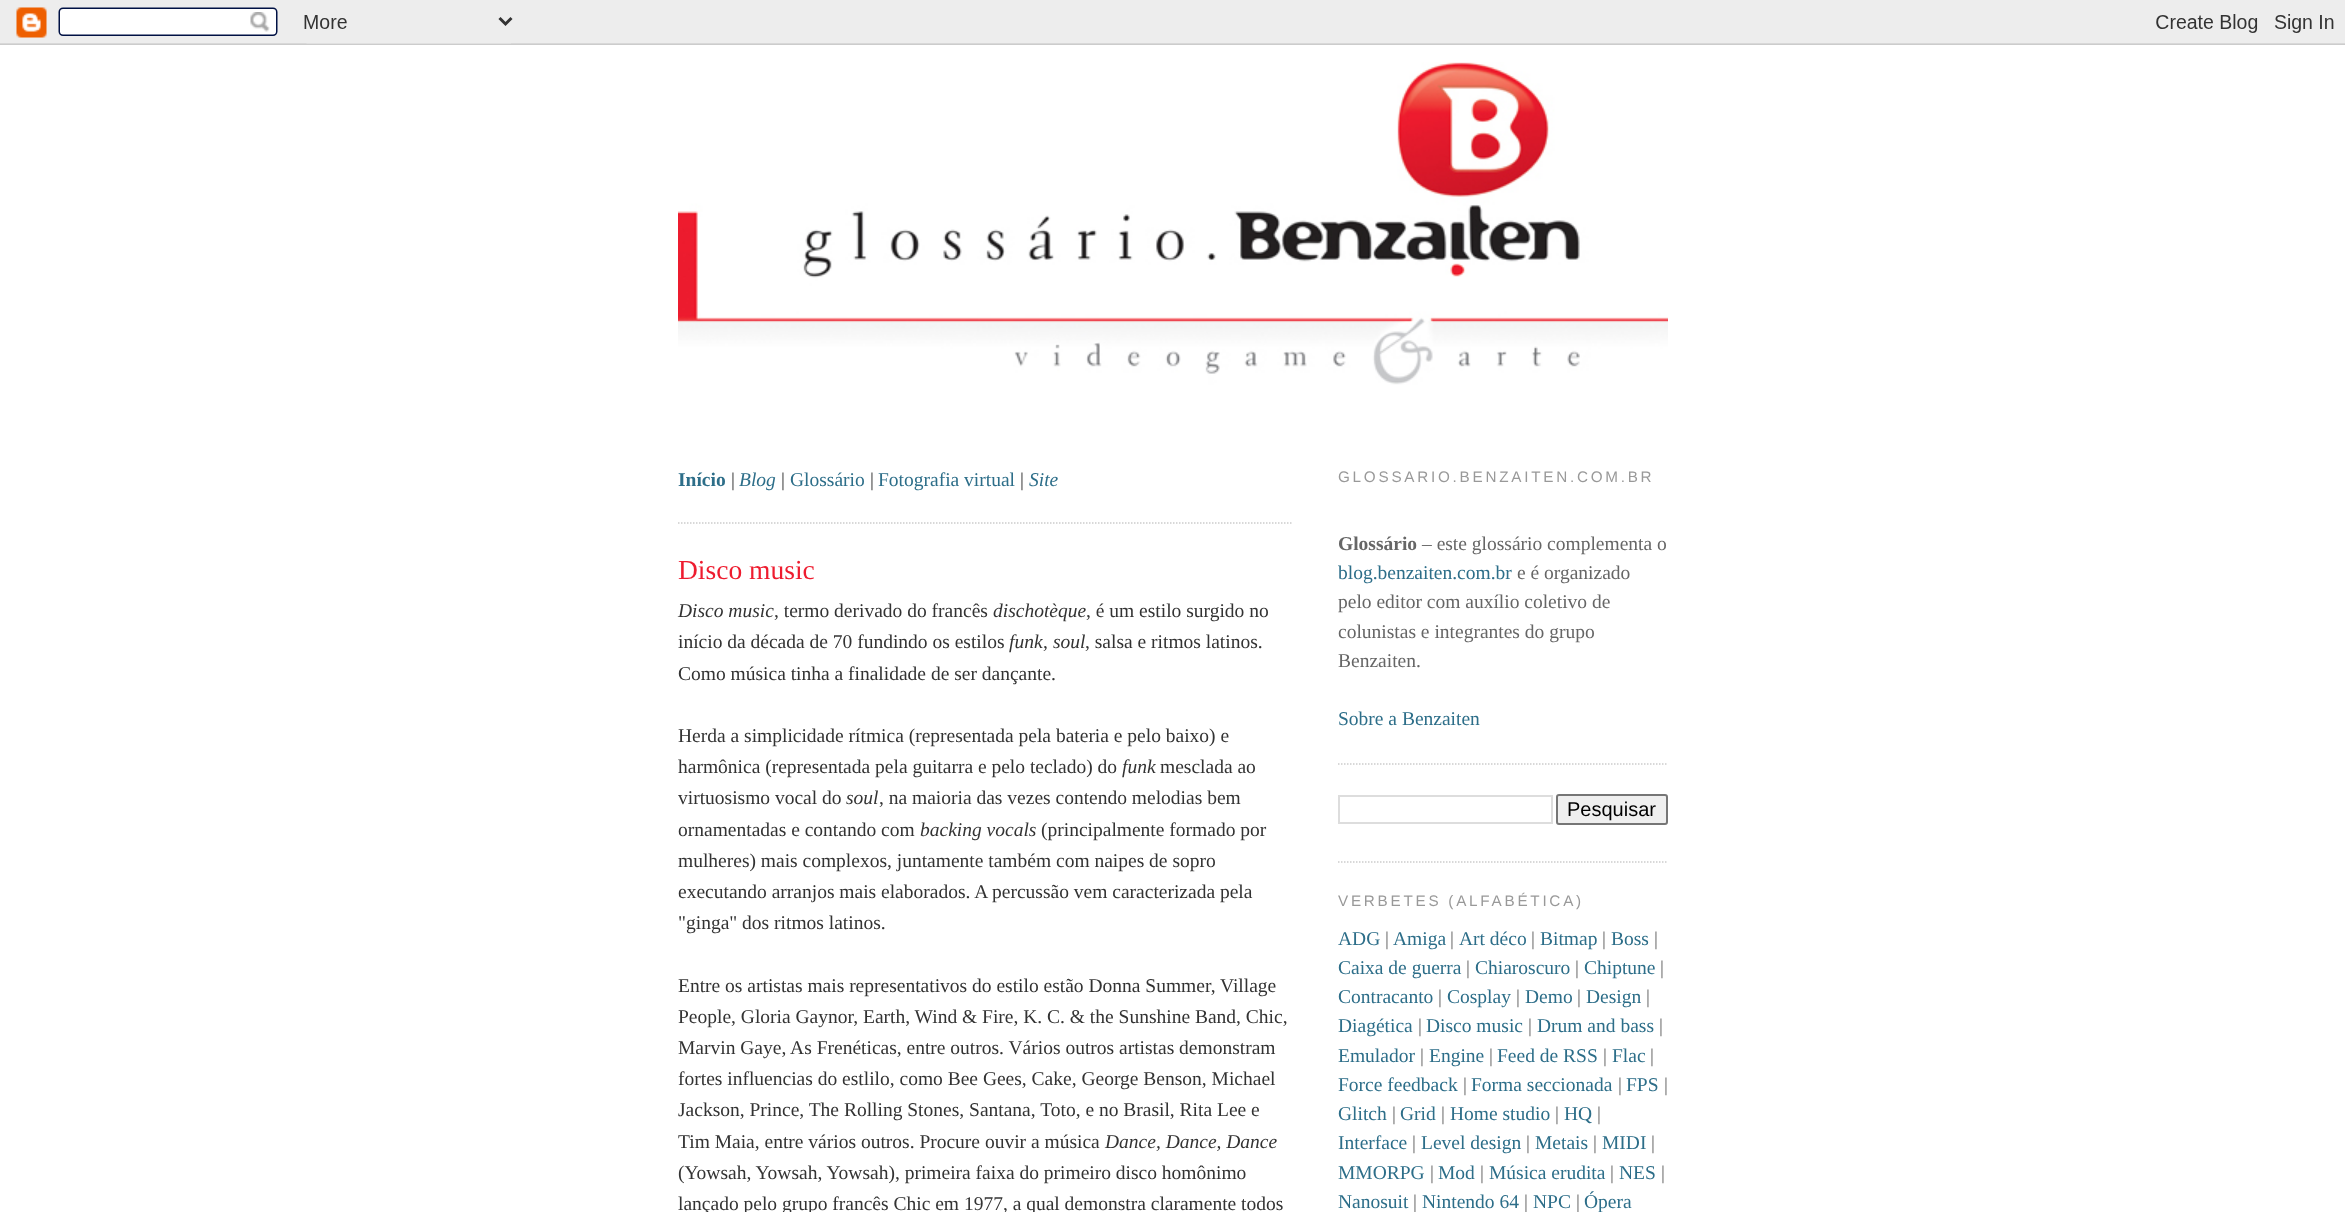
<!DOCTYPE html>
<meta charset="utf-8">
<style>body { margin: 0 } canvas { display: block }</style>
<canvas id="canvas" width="2345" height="1212"></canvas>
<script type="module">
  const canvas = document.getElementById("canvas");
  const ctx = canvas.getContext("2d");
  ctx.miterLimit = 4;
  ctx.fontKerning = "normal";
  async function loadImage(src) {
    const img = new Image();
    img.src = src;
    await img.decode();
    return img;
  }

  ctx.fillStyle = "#ffffff";
  ctx.fillRect(0, 0, 2345, 1212);
  ctx.drawImage(await loadImage("img1.png"), 0, 0, 2345, 45);
  ctx.drawImage(await loadImage("img2.png"), 678, 62, 990, 323);
  ctx.beginPath();
  ctx.moveTo(678, 523);
  ctx.lineTo(1293, 523);
  ctx.strokeStyle = "#cccccc";
  ctx.lineWidth = 1.5;
  ctx.setLineDash([1.5, 1.5]);
  ctx.stroke();
  ctx.font = "bold 19.5px Liberation Serif";
  ctx.fillStyle = "#2d6e89";
  ctx.fillText("Início", 678, 486);
  ctx.font = "19.5px Liberation Serif";
  ctx.fillStyle = "#333333";
  ctx.fillText("|", 731, 486);
  ctx.font = "italic 19.5px Liberation Serif";
  ctx.fillStyle = "#2d6e89";
  ctx.fillText("Blog", 739, 486);
  ctx.font = "19.5px Liberation Serif";
  ctx.fillStyle = "#333333";
  ctx.fillText("|", 781, 486);
  ctx.fillStyle = "#2d6e89";
  ctx.fillText("Glossário", 790, 486);
  ctx.fillStyle = "#333333";
  ctx.fillText("|", 870, 486);
  ctx.fillStyle = "#2d6e89";
  ctx.fillText("Fotografia virtual", 878, 486);
  ctx.fillStyle = "#333333";
  ctx.fillText("|", 1020, 486);
  ctx.font = "italic 19.5px Liberation Serif";
  ctx.fillStyle = "#2d6e89";
  ctx.fillText("Site", 1029, 486);
  ctx.font = "27.5px Liberation Serif";
  ctx.fillStyle = "#ee1c2f";
  ctx.fillText("Disco music", 678, 579);
  ctx.font = "italic 19.5px Liberation Serif";
  ctx.fillStyle = "#333333";
  ctx.fillText("Disco music", 678, 617);
  ctx.font = "19.5px Liberation Serif";
  ctx.fillText(", termo derivado do francês", 774, 617);
  ctx.font = "italic 19.5px Liberation Serif";
  ctx.fillText("dischotèque", 993, 617);
  ctx.font = "19.5px Liberation Serif";
  ctx.fillText(", é um estilo surgido no", 1086, 617);
  ctx.fillText("início da década de 70 fundindo os estilos", 678, 648);
  ctx.font = "italic 19.5px Liberation Serif";
  ctx.fillText("funk", 1009, 648);
  ctx.font = "19.5px Liberation Serif";
  ctx.fillText(",", 1043, 648);
  ctx.font = "italic 19.5px Liberation Serif";
  ctx.fillText("soul", 1053, 648);
  ctx.font = "19.5px Liberation Serif";
  ctx.fillText(", salsa e ritmos latinos.", 1085, 648);
  ctx.fillText("Como música tinha a finalidade de ser dançante.", 678, 680);
  ctx.fillText("Herda a simplicidade rítmica (representada pela bateria e pelo baixo) e", 678, 742);
  ctx.fillText("harmônica (representada pela guitarra e pelo teclado) do", 678, 773);
  ctx.font = "italic 19.5px Liberation Serif";
  ctx.fillText("funk", 1122, 773);
  ctx.font = "19.5px Liberation Serif";
  ctx.fillText("mesclada ao", 1160, 773);
  ctx.fillText("virtuosismo vocal do", 678, 804);
  ctx.font = "italic 19.5px Liberation Serif";
  ctx.fillText("soul", 846, 804);
  ctx.font = "19.5px Liberation Serif";
  ctx.fillText(", na maioria das vezes contendo melodias bem", 879, 804);
  ctx.fillText("ornamentadas e contando com", 678, 836);
  ctx.font = "italic 19.5px Liberation Serif";
  ctx.fillText("backing vocals", 920, 836);
  ctx.font = "19.5px Liberation Serif";
  ctx.fillText("(principalmente formado por", 1041, 836);
  ctx.fillText("mulheres) mais complexos, juntamente também com naipes de sopro", 678, 867);
  ctx.fillText("executando arranjos mais elaborados. A percussão vem caracterizada pela", 678, 898);
  ctx.fillText("\"ginga\" dos ritmos latinos.", 678, 929);
  ctx.fillText("Entre os artistas mais representativos do estilo estão Donna Summer, Village", 678, 992);
  ctx.fillText("People, Gloria Gaynor, Earth, Wind & Fire, K. C. & the Sunshine Band, Chic,", 678, 1023);
  ctx.fillText("Marvin Gaye, As Frenéticas, entre outros. Vários outros artistas demonstram", 678, 1054);
  ctx.fillText("fortes influencias do estlilo, como Bee Gees, Cake, George Benson, Michael", 678, 1085);
  ctx.fillText("Jackson, Prince, The Rolling Stones, Santana, Toto, e no Brasil, Rita Lee e", 678, 1116);
  ctx.fillText("Tim Maia, entre vários outros. Procure ouvir a música", 678, 1148);
  ctx.font = "italic 19.5px Liberation Serif";
  ctx.fillText("Dance, Dance, Dance", 1105, 1148);
  ctx.font = "19.5px Liberation Serif";
  ctx.fillText("(Yowsah, Yowsah, Yowsah), primeira faixa do primeiro disco homônimo", 678, 1179);
  ctx.fillText("lançado pelo grupo francês Chic em 1977, a qual demonstra claramente todos", 678, 1210);
  ctx.beginPath();
  ctx.moveTo(1338, 764);
  ctx.lineTo(1668, 764);
  ctx.stroke();
  ctx.letterSpacing = "2.75px";
  ctx.font = "15.25px Liberation Sans";
  ctx.fillStyle = "#999999";
  ctx.fillText("GLOSSARIO.BENZAITEN.COM.BR", 1338, 482);
  ctx.letterSpacing = "0px";
  ctx.font = "bold 19.5px Liberation Serif";
  ctx.fillStyle = "#666666";
  ctx.fillText("Glossário", 1338, 550);
  ctx.font = "19.5px Liberation Serif";
  ctx.fillText("– este glossário complementa o", 1422, 550);
  ctx.fillStyle = "#2d6e89";
  ctx.fillText("blog.benzaiten.com.br", 1338, 579);
  ctx.fillStyle = "#666666";
  ctx.fillText("e é organizado", 1517, 579);
  ctx.fillText("pelo editor com auxílio coletivo de", 1338, 608);
  ctx.fillText("colunistas e integrantes do grupo", 1338, 638);
  ctx.fillText("Benzaiten.", 1338, 667);
  ctx.fillStyle = "#2d6e89";
  ctx.fillText("Sobre a Benzaiten", 1338, 725);
  ctx.beginPath();
  ctx.moveTo(1338, 862);
  ctx.lineTo(1668, 862);
  ctx.stroke();
  ctx.strokeStyle = "#dddddd";
  ctx.lineWidth = 2;
  ctx.setLineDash([]);
  ctx.strokeRect(1339, 796, 213, 27);
  ctx.fillStyle = "#efefef";
  ctx.beginPath();
  ctx.roundRect(1557, 795, 110, 29, 2);
  ctx.fill();
  ctx.strokeStyle = "#767676";
  ctx.stroke();
  ctx.font = "20px Liberation Sans";
  ctx.fillStyle = "#000000";
  ctx.fillText("Pesquisar", 1567, 816);
  ctx.letterSpacing = "2.75px";
  ctx.font = "15.25px Liberation Sans";
  ctx.fillStyle = "#999999";
  ctx.fillText("VERBETES (ALFABÉTICA)", 1338, 906);
  ctx.letterSpacing = "0px";
  ctx.font = "19.5px Liberation Serif";
  ctx.fillStyle = "#2d6e89";
  ctx.fillText("ADG", 1338, 945);
  ctx.fillStyle = "#666666";
  ctx.fillText("|", 1385, 945);
  ctx.fillStyle = "#2d6e89";
  ctx.fillText("Amiga", 1393, 945);
  ctx.fillStyle = "#666666";
  ctx.fillText("|", 1450, 945);
  ctx.fillStyle = "#2d6e89";
  ctx.fillText("Art déco", 1459, 945);
  ctx.fillStyle = "#666666";
  ctx.fillText("|", 1531, 945);
  ctx.fillStyle = "#2d6e89";
  ctx.fillText("Bitmap", 1540, 945);
  ctx.fillStyle = "#666666";
  ctx.fillText("|", 1602, 945);
  ctx.fillStyle = "#2d6e89";
  ctx.fillText("Boss", 1611, 945);
  ctx.fillStyle = "#666666";
  ctx.fillText("|", 1654, 945);
  ctx.fillStyle = "#2d6e89";
  ctx.fillText("Caixa de guerra", 1338, 974);
  ctx.fillStyle = "#666666";
  ctx.fillText("|", 1466, 974);
  ctx.fillStyle = "#2d6e89";
  ctx.fillText("Chiaroscuro", 1475, 974);
  ctx.fillStyle = "#666666";
  ctx.fillText("|", 1575, 974);
  ctx.fillStyle = "#2d6e89";
  ctx.fillText("Chiptune", 1584, 974);
  ctx.fillStyle = "#666666";
  ctx.fillText("|", 1660, 974);
  ctx.fillStyle = "#2d6e89";
  ctx.fillText("Contracanto", 1338, 1003);
  ctx.fillStyle = "#666666";
  ctx.fillText("|", 1438, 1003);
  ctx.fillStyle = "#2d6e89";
  ctx.fillText("Cosplay", 1447, 1003);
  ctx.fillStyle = "#666666";
  ctx.fillText("|", 1516, 1003);
  ctx.fillStyle = "#2d6e89";
  ctx.fillText("Demo", 1525, 1003);
  ctx.fillStyle = "#666666";
  ctx.fillText("|", 1577, 1003);
  ctx.fillStyle = "#2d6e89";
  ctx.fillText("Design", 1586, 1003);
  ctx.fillStyle = "#666666";
  ctx.fillText("|", 1646, 1003);
  ctx.fillStyle = "#2d6e89";
  ctx.fillText("Diagética", 1338, 1032);
  ctx.fillStyle = "#666666";
  ctx.fillText("|", 1418, 1032);
  ctx.fillStyle = "#2d6e89";
  ctx.fillText("Disco music", 1426, 1032);
  ctx.fillStyle = "#666666";
  ctx.fillText("|", 1528, 1032);
  ctx.fillStyle = "#2d6e89";
  ctx.fillText("Drum and bass", 1537, 1032);
  ctx.fillStyle = "#666666";
  ctx.fillText("|", 1659, 1032);
  ctx.fillStyle = "#2d6e89";
  ctx.fillText("Emulador", 1338, 1062);
  ctx.fillStyle = "#666666";
  ctx.fillText("|", 1420, 1062);
  ctx.fillStyle = "#2d6e89";
  ctx.fillText("Engine", 1429, 1062);
  ctx.fillStyle = "#666666";
  ctx.fillText("|", 1489, 1062);
  ctx.fillStyle = "#2d6e89";
  ctx.fillText("Feed de RSS", 1497, 1062);
  ctx.fillStyle = "#666666";
  ctx.fillText("|", 1603, 1062);
  ctx.fillStyle = "#2d6e89";
  ctx.fillText("Flac", 1612, 1062);
  ctx.fillStyle = "#666666";
  ctx.fillText("|", 1650, 1062);
  ctx.fillStyle = "#2d6e89";
  ctx.fillText("Force feedback", 1338, 1091);
  ctx.fillStyle = "#666666";
  ctx.fillText("|", 1463, 1091);
  ctx.fillStyle = "#2d6e89";
  ctx.fillText("Forma seccionada", 1471, 1091);
  ctx.fillStyle = "#666666";
  ctx.fillText("|", 1618, 1091);
  ctx.fillStyle = "#2d6e89";
  ctx.fillText("FPS", 1626, 1091);
  ctx.fillStyle = "#666666";
  ctx.fillText("|", 1664, 1091);
  ctx.fillStyle = "#2d6e89";
  ctx.fillText("Glitch", 1338, 1120);
  ctx.fillStyle = "#666666";
  ctx.fillText("|", 1392, 1120);
  ctx.fillStyle = "#2d6e89";
  ctx.fillText("Grid", 1400, 1120);
  ctx.fillStyle = "#666666";
  ctx.fillText("|", 1441, 1120);
  ctx.fillStyle = "#2d6e89";
  ctx.fillText("Home studio", 1450, 1120);
  ctx.fillStyle = "#666666";
  ctx.fillText("|", 1555, 1120);
  ctx.fillStyle = "#2d6e89";
  ctx.fillText("HQ", 1564, 1120);
  ctx.fillStyle = "#666666";
  ctx.fillText("|", 1597, 1120);
  ctx.fillStyle = "#2d6e89";
  ctx.fillText("Interface", 1338, 1149);
  ctx.fillStyle = "#666666";
  ctx.fillText("|", 1412, 1149);
  ctx.fillStyle = "#2d6e89";
  ctx.fillText("Level design", 1421, 1149);
  ctx.fillStyle = "#666666";
  ctx.fillText("|", 1526, 1149);
  ctx.fillStyle = "#2d6e89";
  ctx.fillText("Metais", 1535, 1149);
  ctx.fillStyle = "#666666";
  ctx.fillText("|", 1593, 1149);
  ctx.fillStyle = "#2d6e89";
  ctx.fillText("MIDI", 1602, 1149);
  ctx.fillStyle = "#666666";
  ctx.fillText("|", 1651, 1149);
  ctx.fillStyle = "#2d6e89";
  ctx.fillText("MMORPG", 1338, 1179);
  ctx.fillStyle = "#666666";
  ctx.fillText("|", 1430, 1179);
  ctx.fillStyle = "#2d6e89";
  ctx.fillText("Mod", 1438, 1179);
  ctx.fillStyle = "#666666";
  ctx.fillText("|", 1480, 1179);
  ctx.fillStyle = "#2d6e89";
  ctx.fillText("Música erudita", 1489, 1179);
  ctx.fillStyle = "#666666";
  ctx.fillText("|", 1610, 1179);
  ctx.fillStyle = "#2d6e89";
  ctx.fillText("NES", 1619, 1179);
  ctx.fillStyle = "#666666";
  ctx.fillText("|", 1661, 1179);
  ctx.fillStyle = "#2d6e89";
  ctx.fillText("Nanosuit", 1338, 1208);
  ctx.fillStyle = "#666666";
  ctx.fillText("|", 1413, 1208);
  ctx.fillStyle = "#2d6e89";
  ctx.fillText("Nintendo 64", 1422, 1208);
  ctx.fillStyle = "#666666";
  ctx.fillText("|", 1524, 1208);
  ctx.fillStyle = "#2d6e89";
  ctx.fillText("NPC", 1533, 1208);
  ctx.fillStyle = "#666666";
  ctx.fillText("|", 1576, 1208);
  ctx.fillStyle = "#2d6e89";
  ctx.fillText("Ópera", 1584, 1208);
</script>
